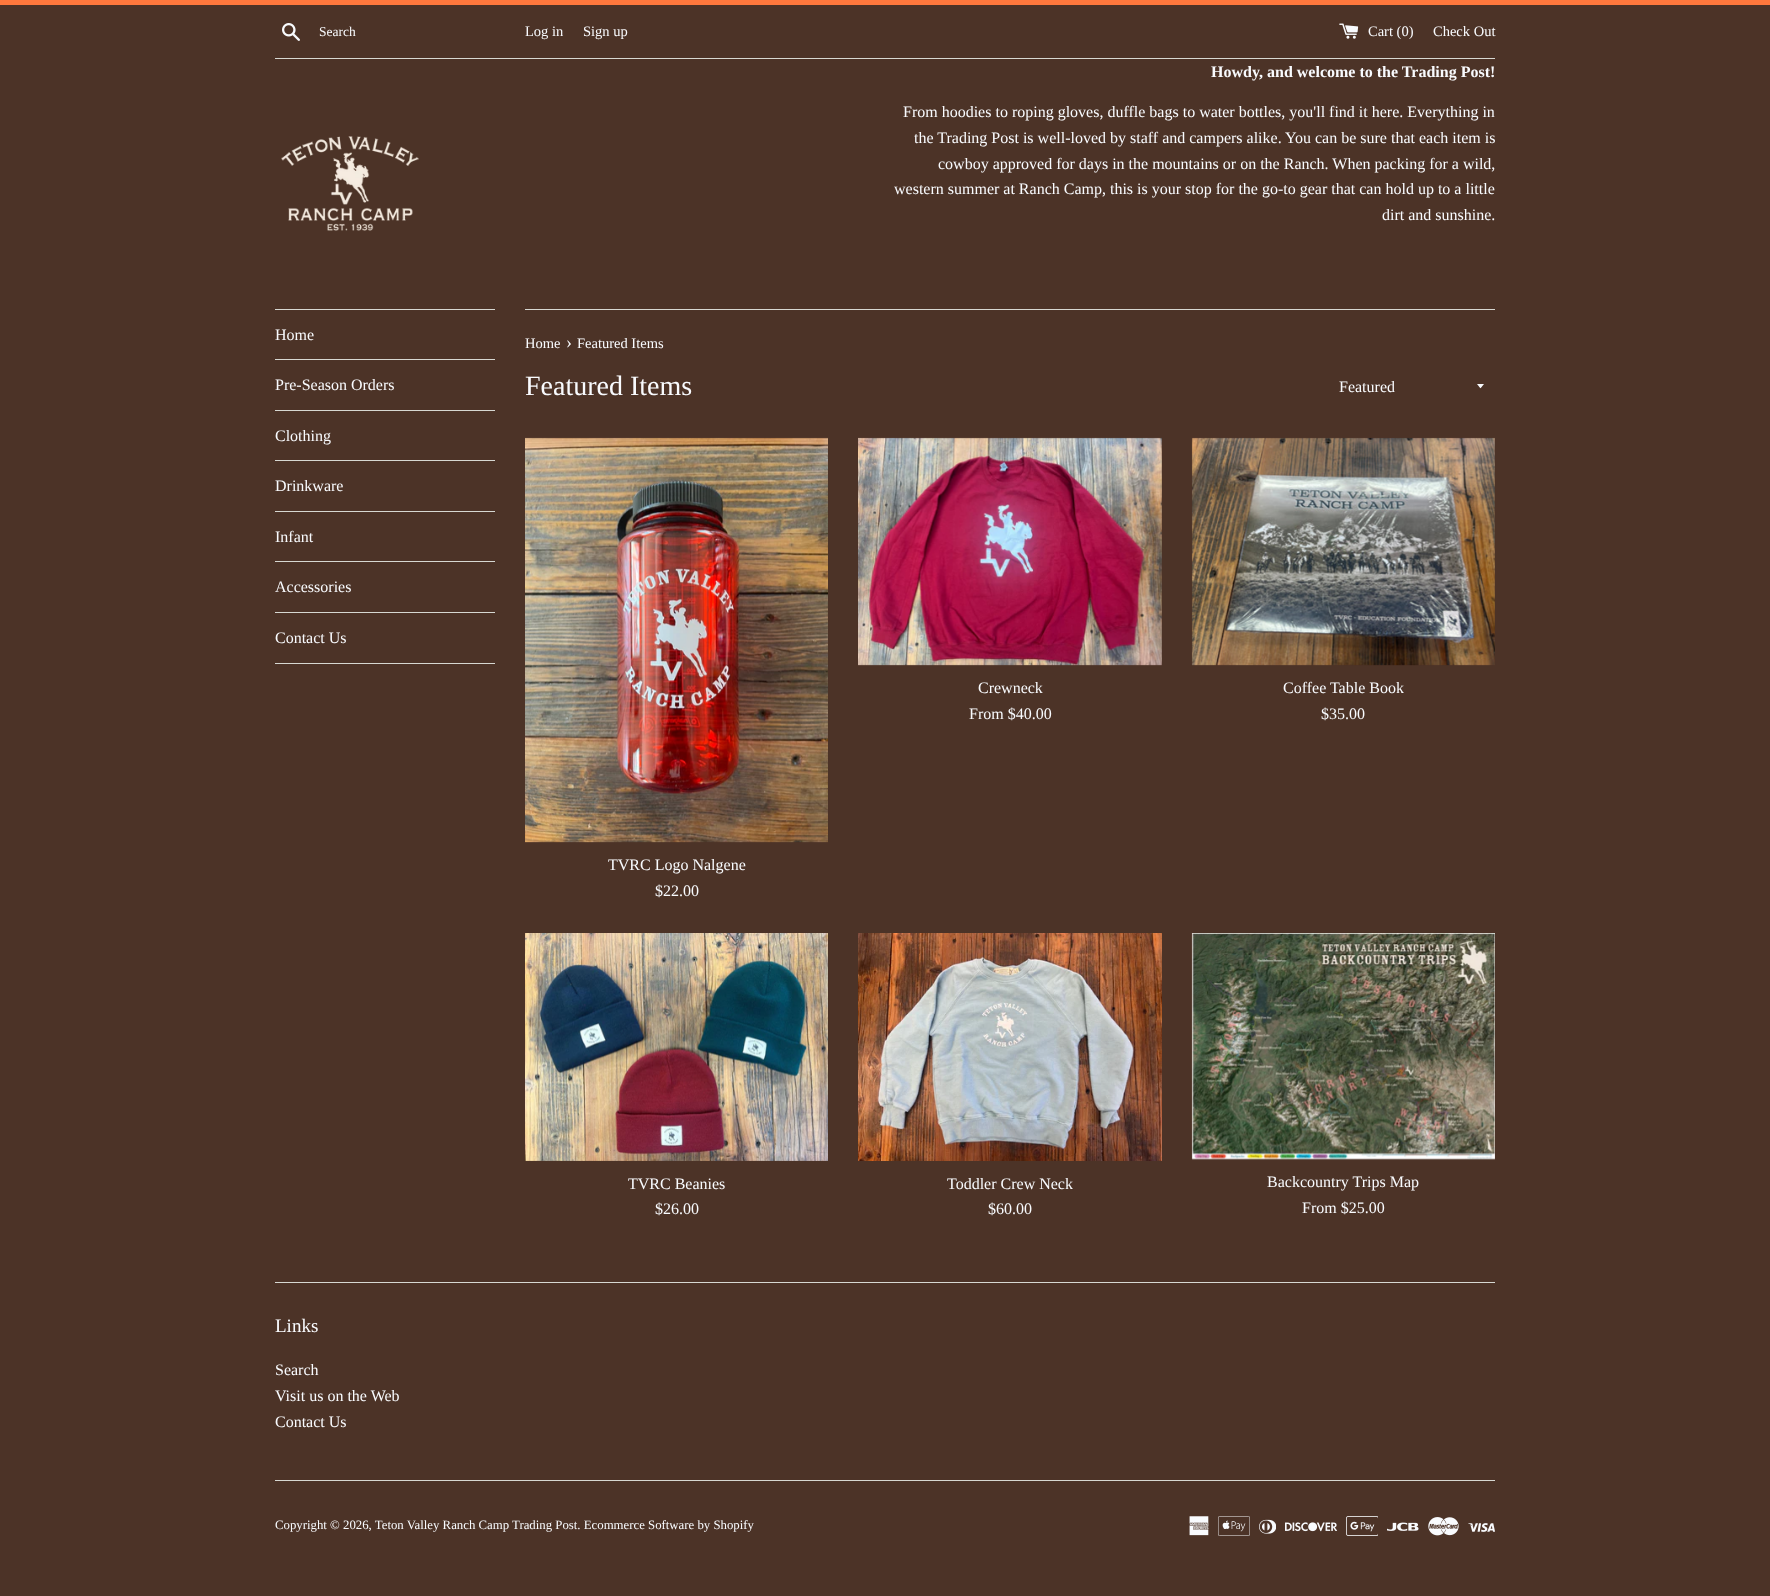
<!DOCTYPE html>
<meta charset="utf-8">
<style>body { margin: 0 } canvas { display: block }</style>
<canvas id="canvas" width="1770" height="1596"></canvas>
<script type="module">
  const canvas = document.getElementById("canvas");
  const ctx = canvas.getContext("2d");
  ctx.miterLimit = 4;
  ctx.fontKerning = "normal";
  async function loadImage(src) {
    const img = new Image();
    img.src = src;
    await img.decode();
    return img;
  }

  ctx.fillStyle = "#4c3327";
  ctx.fillRect(0, 0, 1770, 1596);
  ctx.fillStyle = "#ff783d";
  ctx.fillRect(0, 0, 1770, 5);
  ctx.drawImage(await loadImage("img1.png"), 282, 23, 18, 18);
  ctx.font = "13.5px Liberation Serif";
  ctx.fillStyle = "#f9fbfe";
  ctx.fillText("Search", 319, 36);
  ctx.font = "14.5px Liberation Serif";
  ctx.fillText("Log in", 525, 36);
  ctx.fillText("Sign up", 583, 36);
  ctx.drawImage(await loadImage("img2.png"), 1339, 23, 20, 16);
  ctx.fillText("Cart (0)", 1368, 36);
  ctx.fillText("Check Out", 1433, 36);
  ctx.fillStyle = "#d7d8d2";
  ctx.fillRect(275, 58, 1220, 1);
  ctx.drawImage(await loadImage("img3.png"), 281, 136, 138, 95);
  ctx.font = "bold 16px Liberation Serif";
  ctx.fillStyle = "#f9fbfe";
  ctx.fillText("Howdy, and welcome to the Trading Post!", 1211, 77);
  ctx.font = "16px Liberation Serif";
  ctx.fillText("From hoodies to roping gloves, duffle bags to water bottles, you'll find it here. Everything in", 903, 117);
  ctx.fillText("the Trading Post is well-loved by staff and campers alike. You can be sure that each item is", 914, 143);
  ctx.fillText("cowboy approved for days in the mountains or on the Ranch. When packing for a wild,", 938, 169);
  ctx.fillText("western summer at Ranch Camp, this is your stop for the go-to gear that can hold up to a little", 894, 194);
  ctx.fillText("dirt and sunshine.", 1382, 220);
  ctx.fillStyle = "#d7d8d2";
  ctx.fillRect(275, 309, 220, 1);
  ctx.fillRect(275, 359, 220, 1);
  ctx.fillStyle = "#f9fbfe";
  ctx.fillText("Home", 275, 340);
  ctx.fillStyle = "#d7d8d2";
  ctx.fillRect(275, 410, 220, 1);
  ctx.fillStyle = "#f9fbfe";
  ctx.fillText("Pre-Season Orders", 275, 390);
  ctx.fillStyle = "#d7d8d2";
  ctx.fillRect(275, 460, 220, 1);
  ctx.fillStyle = "#f9fbfe";
  ctx.fillText("Clothing", 275, 441);
  ctx.fillStyle = "#d7d8d2";
  ctx.fillRect(275, 511, 220, 1);
  ctx.fillStyle = "#f9fbfe";
  ctx.fillText("Drinkware", 275, 491);
  ctx.fillStyle = "#d7d8d2";
  ctx.fillRect(275, 561, 220, 1);
  ctx.fillStyle = "#f9fbfe";
  ctx.fillText("Infant", 275, 542);
  ctx.fillStyle = "#d7d8d2";
  ctx.fillRect(275, 612, 220, 1);
  ctx.fillStyle = "#f9fbfe";
  ctx.fillText("Accessories", 275, 592);
  ctx.fillStyle = "#d7d8d2";
  ctx.fillRect(275, 663, 220, 1);
  ctx.fillStyle = "#f9fbfe";
  ctx.fillText("Contact Us", 275, 643);
  ctx.fillStyle = "#d7d8d2";
  ctx.fillRect(525, 309, 970, 1);
  ctx.font = "14.5px Liberation Serif";
  ctx.fillStyle = "#f9fbfe";
  ctx.fillText("Home", 525, 348);
  ctx.font = "18px Liberation Serif";
  ctx.fillText("›", 566, 348);
  ctx.font = "14.5px Liberation Serif";
  ctx.fillText("Featured Items", 577, 348);
  ctx.font = "28px Liberation Serif";
  ctx.fillText("Featured Items", 525, 395);
  ctx.beginPath();
  ctx.moveTo(1477, 384);
  ctx.bezierCurveTo(1481.5, 389.5, 1479.5, 389.5, 1484, 384);
  ctx.closePath();
  ctx.fill();
  ctx.font = "16px Liberation Serif";
  ctx.fillText("Featured", 1339, 392);
  ctx.drawImage(await loadImage("img4.png"), 858, 437, 304, 229);
  ctx.fillText("Crewneck", 978, 693);
  ctx.fillText("From $40.00", 969, 719);
  ctx.drawImage(await loadImage("img5.png"), 1191, 437, 304, 229);
  ctx.fillText("Coffee Table Book", 1283, 693);
  ctx.fillText("$35.00", 1321, 719);
  ctx.drawImage(await loadImage("img6.png"), 525, 437, 303, 406);
  ctx.fillText("TVRC Logo Nalgene", 608, 870);
  ctx.fillText("$22.00", 655, 896);
  ctx.drawImage(await loadImage("img7.png"), 525, 933, 303, 228);
  ctx.fillText("TVRC Beanies", 628, 1189);
  ctx.fillText("$26.00", 655, 1214);
  ctx.drawImage(await loadImage("img8.png"), 858, 933, 304, 228);
  ctx.fillText("Toddler Crew Neck", 947, 1189);
  ctx.fillText("$60.00", 988, 1214);
  ctx.drawImage(await loadImage("img9.png"), 1191, 933, 304, 227);
  ctx.fillText("Backcountry Trips Map", 1267, 1187);
  ctx.fillText("From $25.00", 1302, 1213);
  ctx.fillStyle = "#d7d8d2";
  ctx.fillRect(275, 1282, 1220, 1);
  ctx.font = "19px Liberation Serif";
  ctx.fillStyle = "#f9fbfe";
  ctx.fillText("Links", 275, 1332);
  ctx.font = "16px Liberation Serif";
  ctx.fillText("Search", 275, 1375);
  ctx.fillText("Visit us on the Web", 275, 1401);
  ctx.fillText("Contact Us", 275, 1427);
  ctx.fillStyle = "#d7d8d2";
  ctx.fillRect(275, 1480, 1220, 1);
  ctx.font = "12.8px Liberation Serif";
  ctx.fillStyle = "#f9fbfe";
  ctx.fillText("Copyright © 2026, Teton Valley Ranch Camp Trading Post. Ecommerce Software by Shopify", 275, 1529);
  ctx.drawImage(await loadImage("img10.png"), 1189, 1516, 20, 20);
  ctx.drawImage(await loadImage("img11.png"), 1218, 1516, 32, 20);
  ctx.drawImage(await loadImage("img12.png"), 1259, 1519, 17, 15);
  ctx.drawImage(await loadImage("img13.png"), 1285, 1522, 52, 10);
  ctx.drawImage(await loadImage("img14.png"), 1346, 1516, 32, 20);
  ctx.drawImage(await loadImage("img15.png"), 1387, 1522, 32, 9);
  ctx.drawImage(await loadImage("img16.png"), 1428, 1517, 31, 19);
  ctx.drawImage(await loadImage("img17.png"), 1468, 1523, 27, 9);
</script>
